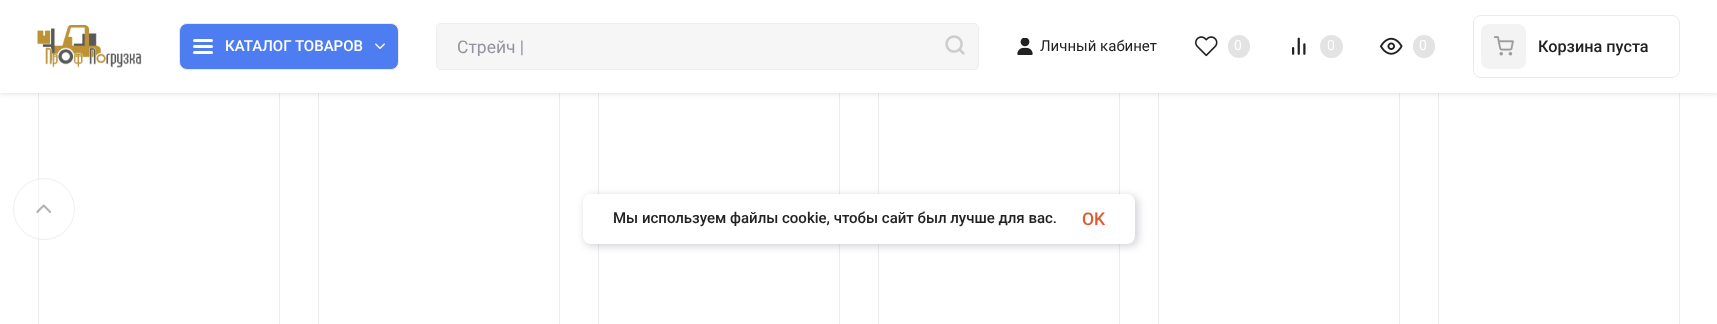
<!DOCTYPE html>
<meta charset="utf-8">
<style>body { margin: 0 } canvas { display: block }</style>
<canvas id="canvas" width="1717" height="324"></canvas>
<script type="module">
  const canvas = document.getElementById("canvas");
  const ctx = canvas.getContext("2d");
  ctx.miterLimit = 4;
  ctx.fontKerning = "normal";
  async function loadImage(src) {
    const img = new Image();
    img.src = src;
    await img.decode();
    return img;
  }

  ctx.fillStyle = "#ffffff";
  ctx.fillRect(0, 0, 1717, 324);
  ctx.strokeStyle = "#ececec";
  ctx.strokeRect(38.5, 70.5, 241, 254);
  ctx.strokeRect(318.5, 70.5, 241, 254);
  ctx.strokeRect(598.5, 70.5, 241, 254);
  ctx.strokeRect(878.5, 70.5, 241, 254);
  ctx.strokeRect(1158.5, 70.5, 241, 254);
  ctx.strokeRect(1438.5, 70.5, 241, 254);
  ctx.fillStyle = "rgba(0, 0, 0, 0.15)";
  ctx.filter = "blur(3px)";
  ctx.beginPath();
  ctx.rect(0, 0, 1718, 93);
  ctx.fill();
  ctx.filter = "none";
  ctx.fillStyle = "#ffffff";
  ctx.fillRect(0, 0, 1717, 93);
  ctx.drawImage(await loadImage("img1.png"), 37, 25, 105, 43);
  ctx.fillStyle = "#4e7df1";
  ctx.beginPath();
  ctx.roundRect(179.5, 23.5, 219, 46, 7.5);
  ctx.fill();
  ctx.strokeStyle = "#ebebec";
  ctx.stroke();
  ctx.fillStyle = "#ffffff";
  ctx.beginPath();
  ctx.roundRect(193, 45, 20, 3, 1.5);
  ctx.fill();
  ctx.beginPath();
  ctx.roundRect(193, 39, 20, 3, 1.5);
  ctx.fill();
  ctx.beginPath();
  ctx.roundRect(193, 51, 20, 3, 1.5);
  ctx.fill();
  ctx.font = "500 15px Roboto";
  ctx.fillText("КАТАЛОГ ТОВАРОВ", 225, 51);
  ctx.drawImage(await loadImage("img2.png"), 375, 43, 10, 6);
  ctx.fillStyle = "#f6f6f6";
  ctx.beginPath();
  ctx.roundRect(436.5, 23.5, 542, 46, 4.5);
  ctx.fill();
  ctx.strokeStyle = "#eeeeee";
  ctx.stroke();
  ctx.save();
  ctx.beginPath();
  ctx.rect(456, 36, 474, 20);
  ctx.clip();
  ctx.font = "17.5px Roboto";
  ctx.fillStyle = "#9393a1";
  ctx.fillText("Стрейч |", 457, 53);
  ctx.restore();
  ctx.drawImage(await loadImage("img3.png"), 945, 35, 20, 20);
  ctx.drawImage(await loadImage("img4.png"), 1017, 38, 16, 17);
  ctx.font = "15px Roboto";
  ctx.fillStyle = "#222222";
  ctx.fillText("Личный кабинет", 1040, 51);
  ctx.drawImage(await loadImage("img5.png"), 1195, 36, 23, 21);
  ctx.fillStyle = "#e3e3e3";
  ctx.beginPath();
  ctx.roundRect(1228, 35, 22, 23, 11);
  ctx.fill();
  ctx.font = "14px Roboto";
  ctx.fillStyle = "#ffffff";
  ctx.fillText("0", 1234, 50);
  ctx.drawImage(await loadImage("img6.png"), 1292, 37, 14, 18);
  ctx.fillStyle = "#e3e3e3";
  ctx.beginPath();
  ctx.arc(1331.5, 46.5, 11.5, 0, Math.PI * 2);
  ctx.fill();
  ctx.fillStyle = "#ffffff";
  ctx.fillText("0", 1327, 50);
  ctx.drawImage(await loadImage("img7.png"), 1380, 37, 23, 18);
  ctx.fillStyle = "#e3e3e3";
  ctx.beginPath();
  ctx.roundRect(1413, 35, 22, 23, 11);
  ctx.fill();
  ctx.fillStyle = "#ffffff";
  ctx.fillText("0", 1419, 50);
  ctx.beginPath();
  ctx.roundRect(1473.5, 15.5, 206, 62, 7.5);
  ctx.strokeStyle = "#ebebeb";
  ctx.stroke();
  ctx.fillStyle = "#f3f3f3";
  ctx.beginPath();
  ctx.roundRect(1481, 24, 45, 45, 8);
  ctx.fill();
  ctx.drawImage(await loadImage("img8.png"), 1494, 36, 20, 20);
  ctx.font = "500 16.25px Roboto";
  ctx.fillStyle = "#222222";
  ctx.fillText("Корзина пуста", 1538, 52);
  ctx.fillStyle = "rgba(255, 255, 255, 0.5)";
  ctx.beginPath();
  ctx.arc(44, 209, 31, 0, Math.PI * 2);
  ctx.fill();
  ctx.beginPath();
  ctx.arc(44, 209, 30.5, 0, Math.PI * 2);
  ctx.strokeStyle = "rgba(221, 221, 221, 0.5)";
  ctx.stroke();
  ctx.drawImage(await loadImage("img9.png"), 36, 204, 15, 9);
  ctx.fillStyle = "rgba(100, 100, 120, 0.3)";
  ctx.filter = "blur(4px)";
  ctx.beginPath();
  ctx.roundRect(585, 196, 553, 50, 8);
  ctx.fill();
  ctx.filter = "none";
  ctx.fillStyle = "#ffffff";
  ctx.beginPath();
  ctx.roundRect(583, 194, 552, 50, 8);
  ctx.fill();
  ctx.font = "500 15px Roboto";
  ctx.fillStyle = "#222222";
  ctx.fillText("Мы используем файлы cookie, чтобы сайт был лучше для вас.", 613, 223);
  ctx.font = "500 17.5px Roboto";
  ctx.fillStyle = "#e05a2d";
  ctx.fillText("OK", 1082, 225);
</script>
